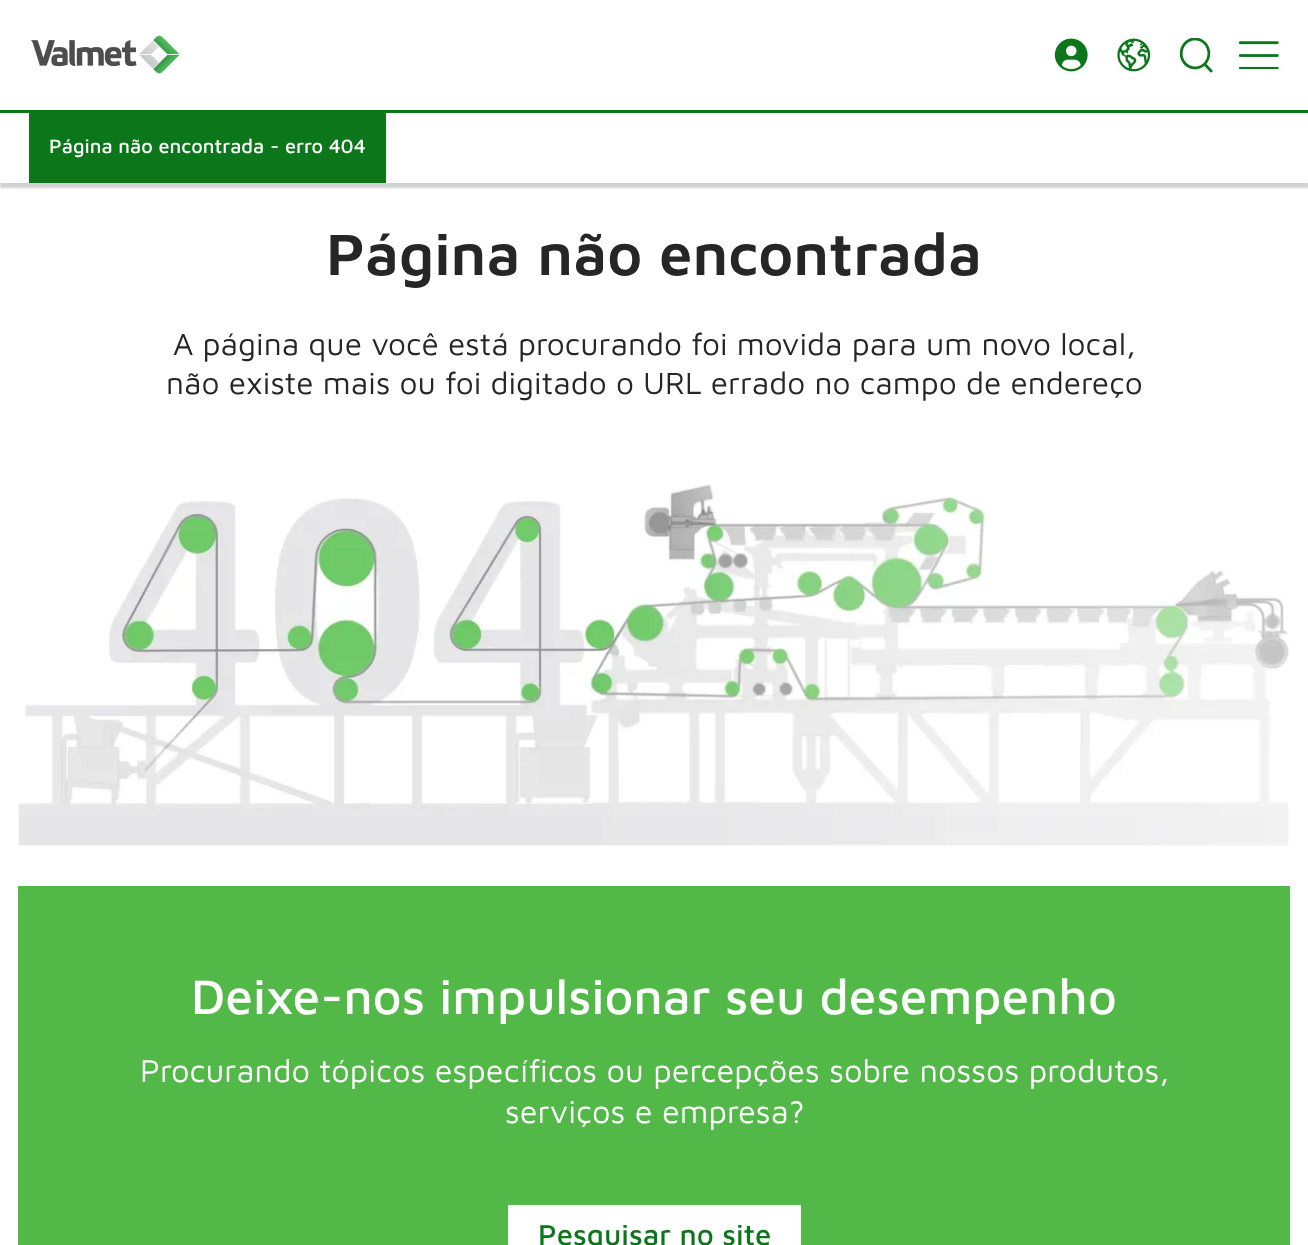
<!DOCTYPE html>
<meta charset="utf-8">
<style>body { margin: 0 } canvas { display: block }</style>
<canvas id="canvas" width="1308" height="1245"></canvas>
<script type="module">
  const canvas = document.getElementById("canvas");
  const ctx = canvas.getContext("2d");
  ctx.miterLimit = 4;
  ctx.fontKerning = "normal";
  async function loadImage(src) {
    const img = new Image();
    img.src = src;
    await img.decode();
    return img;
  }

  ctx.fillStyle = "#ffffff";
  ctx.fillRect(0, 0, 1308, 1245);
  ctx.drawImage(await loadImage("img1.png"), 30, 35, 150, 39);
  ctx.drawImage(await loadImage("img2.png"), 1054, 38, 34, 34);
  ctx.drawImage(await loadImage("img3.png"), 1117, 38, 34, 34);
  ctx.drawImage(await loadImage("img4.png"), 1179, 38, 34, 35);
  ctx.drawImage(await loadImage("img5.png"), 1239, 41, 40, 28);
  ctx.save();
  ctx.beginPath();
  ctx.moveTo(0, 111);
  ctx.lineTo(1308, 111);
  ctx.lineTo(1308, 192);
  ctx.lineTo(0, 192);
  ctx.closePath();
  ctx.moveTo(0, 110);
  ctx.lineTo(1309, 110);
  ctx.lineTo(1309, 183);
  ctx.lineTo(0, 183);
  ctx.closePath();
  ctx.clip("evenodd");
  ctx.fillStyle = "rgba(0, 0, 0, 0.18)";
  ctx.filter = "blur(1px)";
  ctx.beginPath();
  ctx.rect(0, 115, 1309, 73);
  ctx.fill();
  ctx.filter = "none";
  ctx.restore();
  ctx.fillStyle = "#0b771a";
  ctx.fillRect(0, 110, 1308, 3);
  ctx.fillRect(29, 113, 357, 70);
  ctx.font = "500 20px Maven Pro";
  ctx.fillStyle = "#ffffff";
  ctx.fillText("Página não encontrada - erro 404", 49, 153);
  ctx.font = "600 60px Maven Pro";
  ctx.fillStyle = "#262626";
  ctx.fillText("Página não encontrada", 326, 275);
  ctx.font = "31.65px Maven Pro";
  ctx.fillText("A página que você está procurando foi movida para um novo local,", 173, 355);
  ctx.fillText("não existe mais ou foi digitado o URL errado no campo de endereço", 166, 394);
  ctx.drawImage(await loadImage("img6.png"), 18, 484, 1271, 362);
  ctx.fillStyle = "#52b848";
  ctx.fillRect(18, 886, 1272, 359);
  ctx.font = "500 50px Maven Pro";
  ctx.fillStyle = "#ffffff";
  ctx.fillText("Deixe-nos impulsionar seu desempenho", 191, 1014);
  ctx.font = "32.5px Maven Pro";
  ctx.fillText("Procurando tópicos específicos ou percepções sobre nossos produtos,", 140, 1082);
  ctx.fillText("serviços e empresa?", 505, 1123);
  ctx.fillRect(508, 1205, 293, 40);
  ctx.font = "500 29.5px Maven Pro";
  ctx.fillStyle = "#0b771a";
  ctx.fillText("Pesquisar no site", 538, 1245);
</script>
